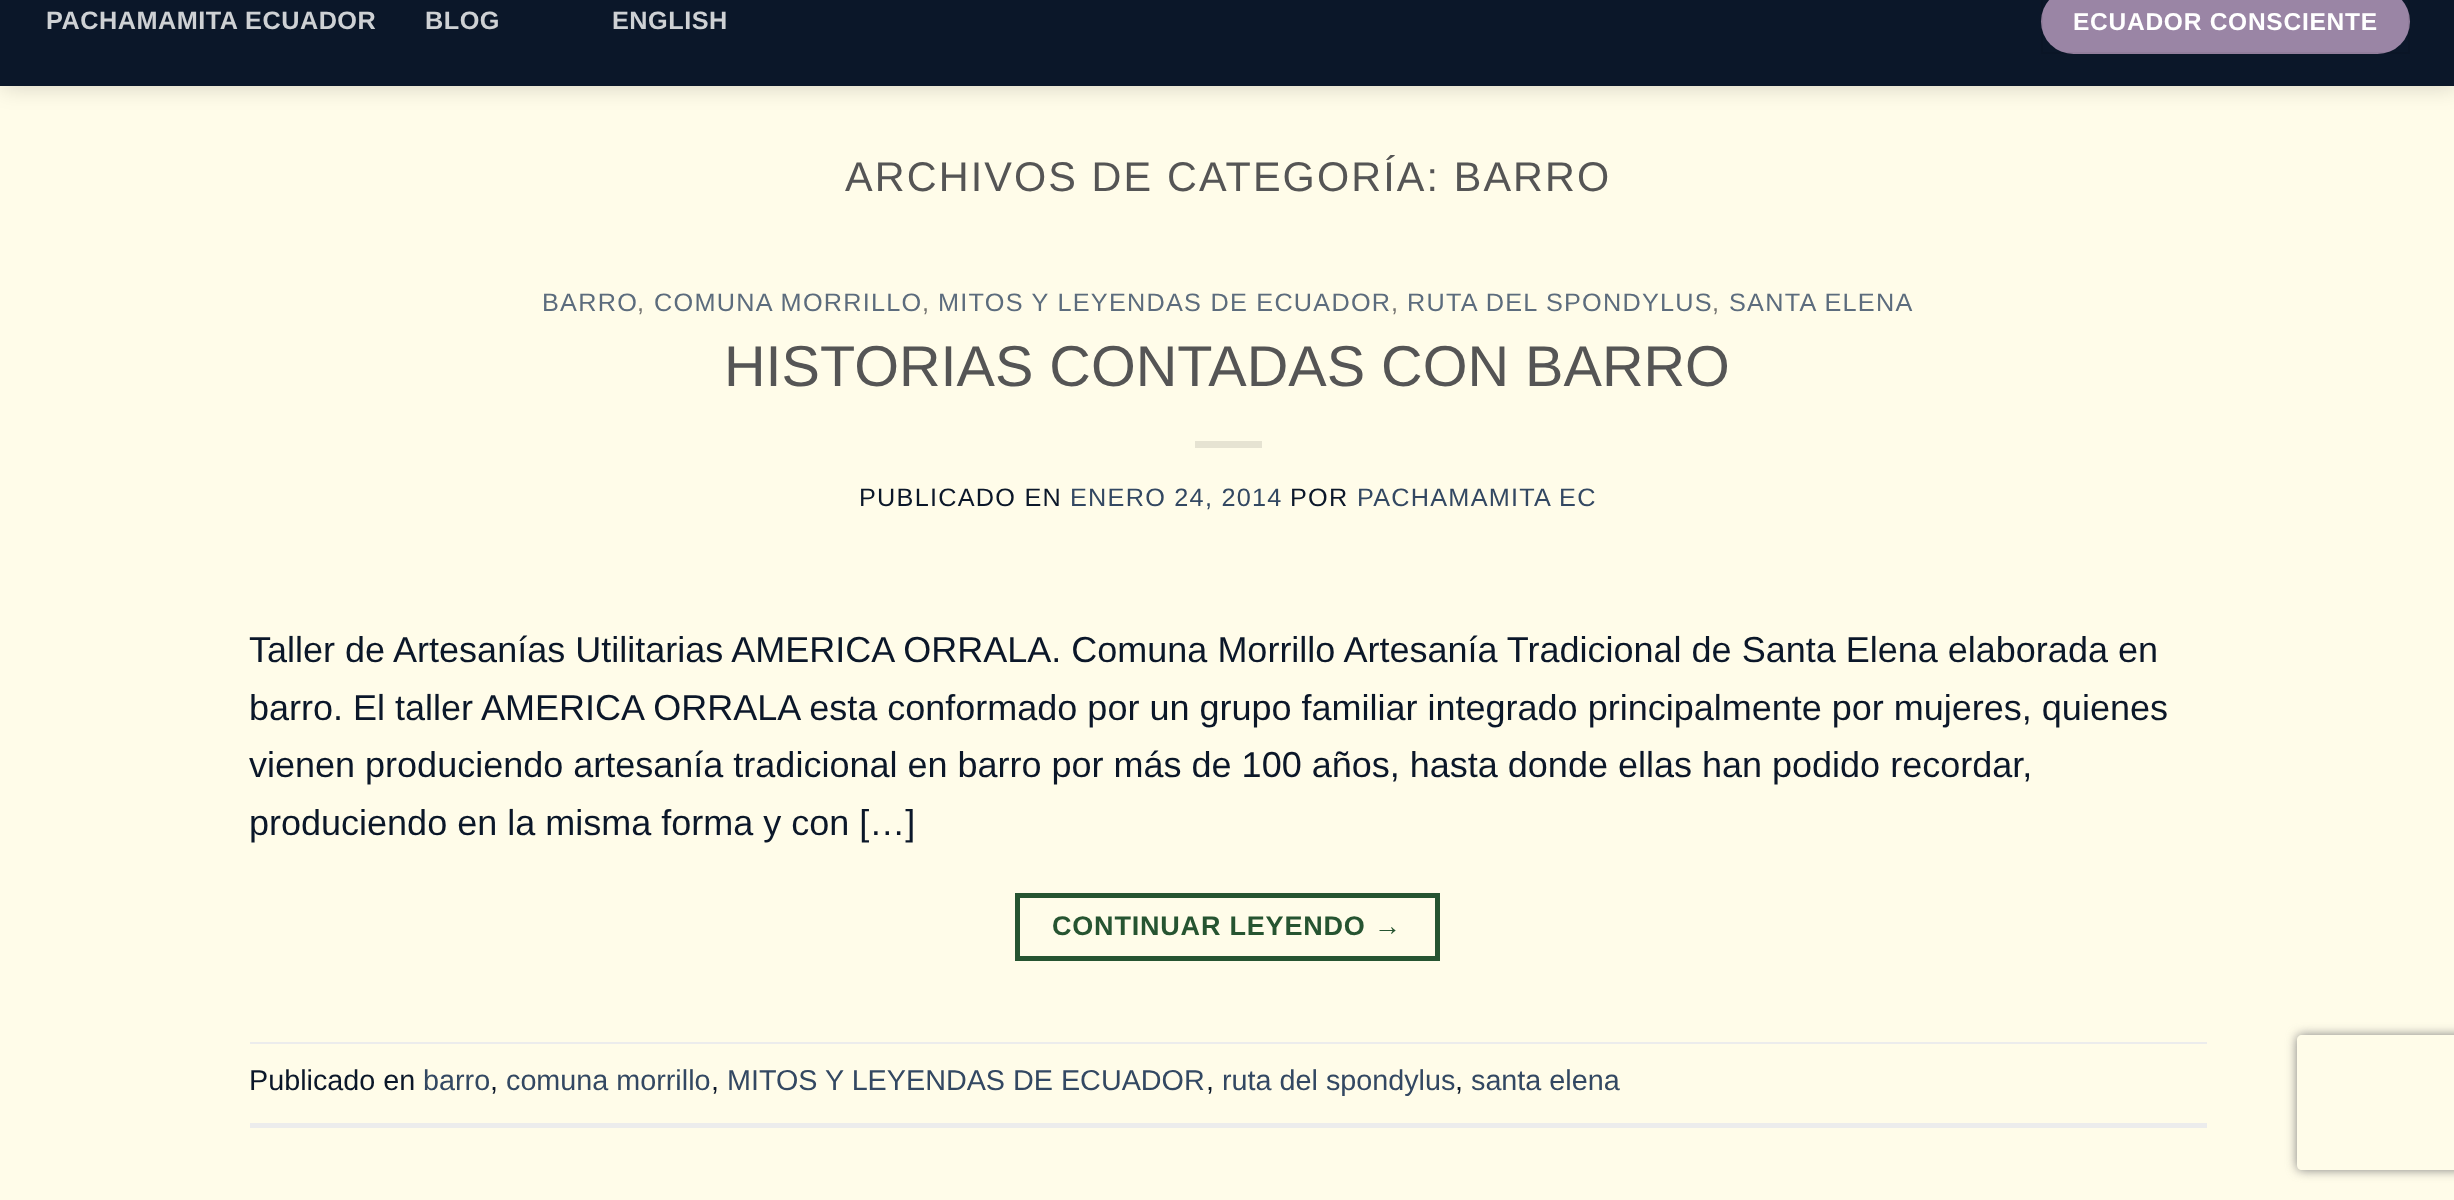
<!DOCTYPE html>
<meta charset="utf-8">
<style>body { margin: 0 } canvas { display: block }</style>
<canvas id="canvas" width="2454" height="1200"></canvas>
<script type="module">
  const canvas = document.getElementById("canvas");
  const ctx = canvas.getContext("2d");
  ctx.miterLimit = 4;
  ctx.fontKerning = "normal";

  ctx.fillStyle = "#fffce9";
  ctx.fillRect(0, 0, 2454, 1200);
  ctx.fillStyle = "rgba(0, 0, 0, 0.15)";
  ctx.filter = "blur(11px)";
  ctx.beginPath();
  ctx.rect(2, -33, 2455, 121);
  ctx.fill();
  ctx.filter = "none";
  ctx.fillStyle = "#0b1729";
  ctx.fillRect(0, 0, 2454, 86);
  ctx.letterSpacing = "0.5px";
  ctx.font = "bold 25.25px Liberation Sans";
  ctx.fillStyle = "#ced1d4";
  ctx.fillText("PACHAMAMITA ECUADOR", 46, 29);
  ctx.fillText("BLOG", 425, 29);
  ctx.fillText("ENGLISH", 612, 29);
  ctx.fillStyle = "#9a85a5";
  ctx.beginPath();
  ctx.roundRect(2041, -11, 369, 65, 32.5);
  ctx.fill();
  ctx.strokeStyle = "rgba(0, 0, 0, 0.05)";
  ctx.lineWidth = 2;
  ctx.strokeRect(2042, -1, 367, 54);
  ctx.letterSpacing = "0.75px";
  ctx.font = "bold 24.5px Liberation Sans";
  ctx.fillStyle = "#ffffff";
  ctx.fillText("ECUADOR CONSCIENTE", 2073, 30);
  ctx.letterSpacing = "2.1px";
  ctx.font = "41.4px Liberation Sans";
  ctx.fillStyle = "#555555";
  ctx.fillText("ARCHIVOS DE CATEGORÍA: BARRO", 845, 191);
  ctx.letterSpacing = "1.25px";
  ctx.font = "25.25px Liberation Sans";
  ctx.fillStyle = "#5c6c7d";
  ctx.fillText("BARRO", 542, 311);
  ctx.fillStyle = "#777673";
  ctx.fillText(",", 637, 311);
  ctx.fillStyle = "#5c6c7d";
  ctx.fillText("COMUNA MORRILLO", 654, 311);
  ctx.fillStyle = "#777673";
  ctx.fillText(",", 922, 311);
  ctx.fillStyle = "#5c6c7d";
  ctx.fillText("MITOS Y LEYENDAS DE ECUADOR", 938, 311);
  ctx.fillStyle = "#777673";
  ctx.fillText(",", 1391, 311);
  ctx.fillStyle = "#5c6c7d";
  ctx.fillText("RUTA DEL SPONDYLUS", 1407, 311);
  ctx.fillStyle = "#777673";
  ctx.fillText(",", 1712, 311);
  ctx.fillStyle = "#5c6c7d";
  ctx.fillText("SANTA ELENA", 1729, 311);
  ctx.letterSpacing = "0px";
  ctx.font = "57.6px Liberation Sans";
  ctx.fillStyle = "#555555";
  ctx.fillText("HISTORIAS CONTADAS CON BARRO", 724, 386);
  ctx.fillStyle = "#e6e3d2";
  ctx.fillRect(1195, 441, 67, 7);
  ctx.letterSpacing = "1.25px";
  ctx.font = "25.25px Liberation Sans";
  ctx.fillStyle = "#0b1729";
  ctx.fillText("PUBLICADO EN", 859, 506);
  ctx.fillStyle = "#334862";
  ctx.fillText("ENERO 24, 2014", 1070, 506);
  ctx.fillStyle = "#0b1729";
  ctx.fillText("POR", 1290, 506);
  ctx.fillStyle = "#334862";
  ctx.fillText("PACHAMAMITA EC", 1357, 506);
  ctx.letterSpacing = "0px";
  ctx.font = "36px Liberation Sans";
  ctx.fillStyle = "#0b1729";
  ctx.fillText("Taller de Artesanías Utilitarias AMERICA ORRALA. Comuna Morrillo Artesanía Tradicional de Santa Elena elaborada en", 249, 662);
  ctx.fillText("barro. El taller AMERICA ORRALA esta conformado por un grupo familiar integrado principalmente por mujeres, quienes", 249, 720);
  ctx.fillText("vienen produciendo artesanía tradicional en barro por más de 100 años, hasta donde ellas han podido recordar,", 249, 777);
  ctx.fillText("produciendo en la misma forma y con […]", 249, 835);
  ctx.strokeStyle = "#265431";
  ctx.lineWidth = 5;
  ctx.strokeRect(1017.5, 895.5, 420, 63);
  ctx.letterSpacing = "0.8px";
  ctx.font = "bold 27px Liberation Sans";
  ctx.fillStyle = "#265431";
  ctx.fillText("CONTINUAR LEYENDO →", 1052, 935);
  ctx.fillStyle = "#ececec";
  ctx.fillRect(250, 1042, 1957, 2);
  ctx.fillRect(250, 1123, 1957, 5);
  ctx.letterSpacing = "0px";
  ctx.font = "28.75px Liberation Sans";
  ctx.fillStyle = "#0b1729";
  ctx.fillText("Publicado en", 249, 1090);
  ctx.fillStyle = "#334862";
  ctx.fillText("barro", 423, 1090);
  ctx.fillStyle = "#0b1729";
  ctx.fillText(",", 490, 1090);
  ctx.fillStyle = "#334862";
  ctx.fillText("comuna morrillo", 506, 1090);
  ctx.fillStyle = "#0b1729";
  ctx.fillText(",", 711, 1090);
  ctx.fillStyle = "#334862";
  ctx.fillText("MITOS Y LEYENDAS DE ECUADOR", 727, 1090);
  ctx.fillStyle = "#0b1729";
  ctx.fillText(",", 1206, 1090);
  ctx.fillStyle = "#334862";
  ctx.fillText("ruta del spondylus", 1222, 1090);
  ctx.fillStyle = "#0b1729";
  ctx.fillText(",", 1455, 1090);
  ctx.fillStyle = "#334862";
  ctx.fillText("santa elena", 1471, 1090);
  ctx.save();
  ctx.beginPath();
  ctx.moveTo(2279, 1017);
  ctx.lineTo(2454, 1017);
  ctx.lineTo(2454, 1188);
  ctx.lineTo(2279, 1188);
  ctx.closePath();
  ctx.moveTo(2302, 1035);
  ctx.lineTo(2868, 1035);
  ctx.bezierCurveTo(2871, 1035, 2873, 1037, 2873, 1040);
  ctx.lineTo(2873, 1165);
  ctx.bezierCurveTo(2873, 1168, 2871, 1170, 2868, 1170);
  ctx.lineTo(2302, 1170);
  ctx.bezierCurveTo(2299, 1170, 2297, 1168, 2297, 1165);
  ctx.lineTo(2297, 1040);
  ctx.bezierCurveTo(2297, 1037, 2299, 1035, 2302, 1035);
  ctx.closePath();
  ctx.clip("evenodd");
  ctx.fillStyle = "#808080";
  ctx.filter = "blur(5.5px)";
  ctx.beginPath();
  ctx.roundRect(2297, 1035, 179, 135, 5);
  ctx.fill();
  ctx.filter = "none";
  ctx.restore();
</script>
